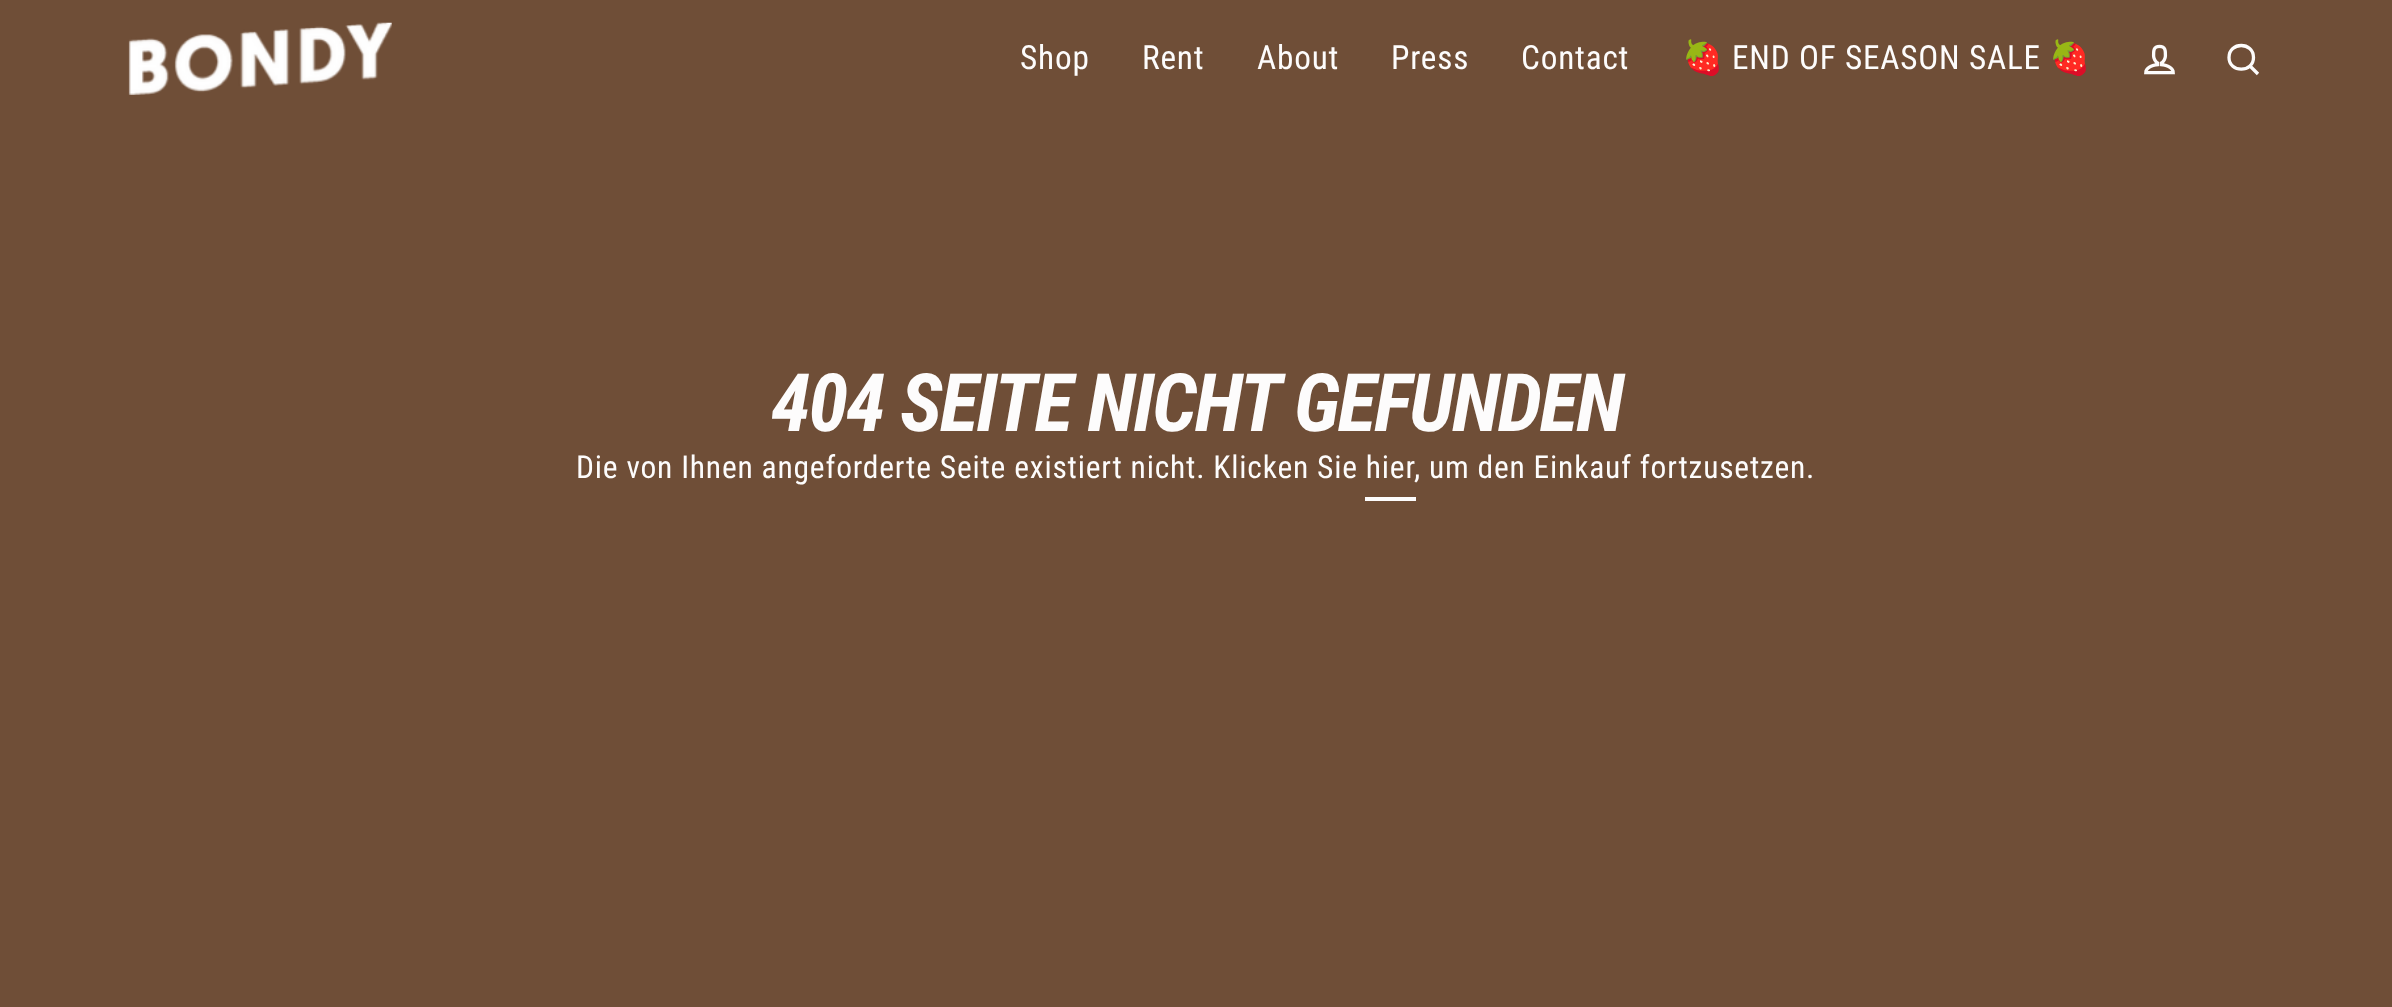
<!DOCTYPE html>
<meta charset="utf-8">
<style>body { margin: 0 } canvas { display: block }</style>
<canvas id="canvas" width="2392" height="1007"></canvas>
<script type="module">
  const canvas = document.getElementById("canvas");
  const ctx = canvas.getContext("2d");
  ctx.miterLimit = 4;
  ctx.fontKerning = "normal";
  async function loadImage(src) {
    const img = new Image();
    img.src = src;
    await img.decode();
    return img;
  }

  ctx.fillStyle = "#6f4e37";
  ctx.fillRect(0, 0, 2392, 1007);
  ctx.drawImage(await loadImage("img1.png"), 128, 22, 264, 73);
  ctx.letterSpacing = "0.8px";
  ctx.font = "33.25px Roboto Condensed";
  ctx.fillStyle = "#fdfcfc";
  ctx.fillText("Shop", 1020, 69);
  ctx.fillText("Rent", 1142, 69);
  ctx.fillText("About", 1257, 69);
  ctx.fillText("Press", 1391, 69);
  ctx.fillText("Contact", 1521, 69);
  ctx.font = "33.25px Noto Color Emoji";
  ctx.fillText("🍓", 1682, 69);
  ctx.font = "33.25px Roboto Condensed";
  ctx.fillText("END OF SEASON SALE", 1732, 69);
  ctx.font = "33.25px Noto Color Emoji";
  ctx.fillText("🍓", 2049, 69);
  ctx.drawImage(await loadImage("img2.png"), 2144, 44, 31, 31);
  ctx.beginPath();
  ctx.moveTo(2253.5, 57.5);
  ctx.bezierCurveTo(2253.5, 73, 2229, 73, 2229, 57.5);
  ctx.bezierCurveTo(2229, 41.5, 2253.5, 41.5, 2253.5, 57.5);
  ctx.closePath();
  ctx.moveTo(2258, 74);
  ctx.lineTo(2250, 66);
  ctx.strokeStyle = "#fdfcfc";
  ctx.lineWidth = 3.3;
  ctx.stroke();
  ctx.letterSpacing = "-2px";
  ctx.font = "italic bold 80.5px Roboto Condensed";
  ctx.fillText("404 SEITE NICHT GEFUNDEN", 771, 431);
  ctx.letterSpacing = "0.8px";
  ctx.font = "31.5px Roboto Condensed";
  ctx.fillText("Die von Ihnen angeforderte Seite existiert nicht. Klicken Sie hier, um den Einkauf fortzusetzen.", 576, 478);
  ctx.fillRect(1365, 497, 51, 4);
</script>
